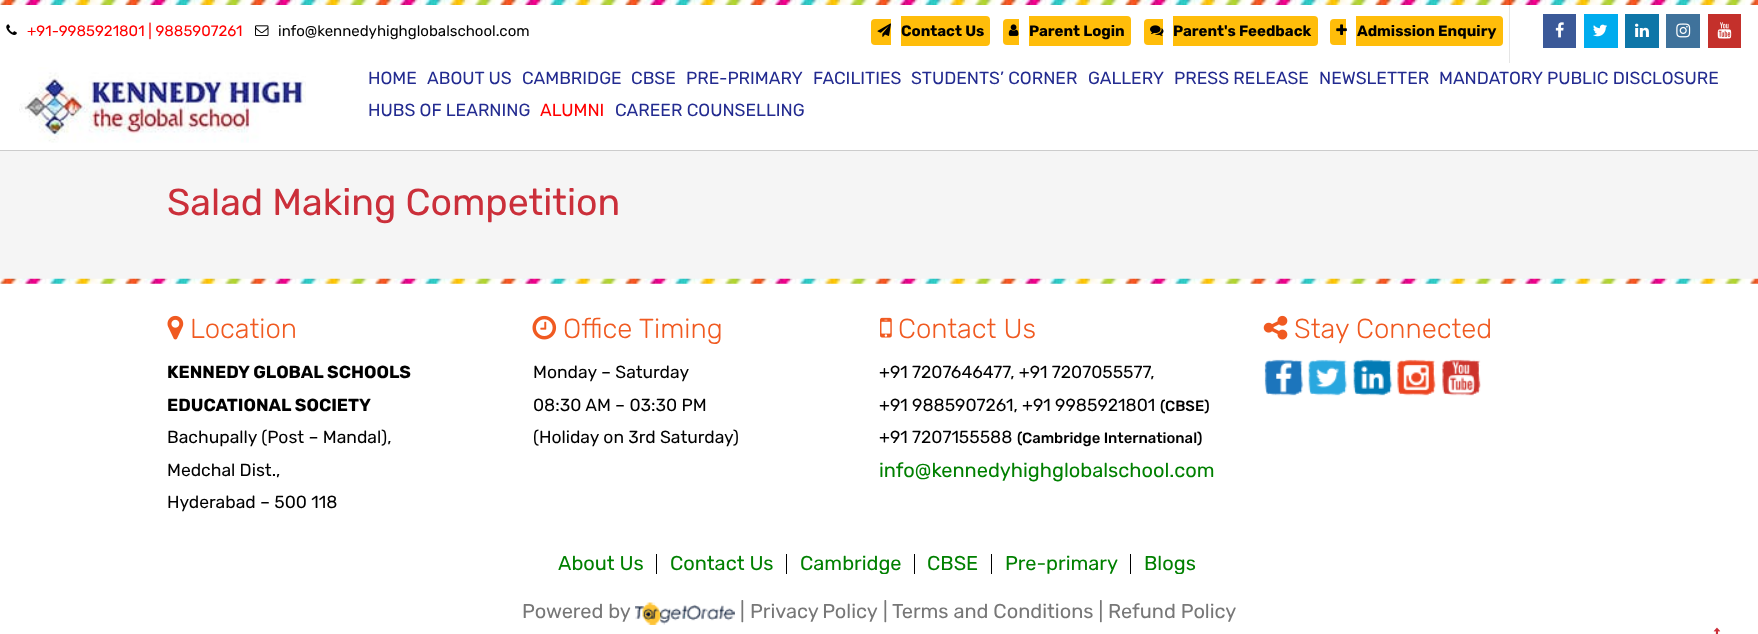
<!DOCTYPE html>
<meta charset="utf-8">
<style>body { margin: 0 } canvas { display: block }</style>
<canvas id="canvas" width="1758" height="634"></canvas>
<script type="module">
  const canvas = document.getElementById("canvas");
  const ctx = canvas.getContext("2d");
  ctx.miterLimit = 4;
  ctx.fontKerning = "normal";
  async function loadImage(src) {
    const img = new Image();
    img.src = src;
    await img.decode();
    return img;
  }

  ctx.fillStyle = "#ffffff";
  ctx.fillRect(0, 0, 1758, 634);
  ctx.fillStyle = "#cccccc";
  ctx.fillRect(0, 150, 1758, 1);
  ctx.drawImage(await loadImage("img1.png"), 0, 0, 1758, 5);
  ctx.drawImage(await loadImage("img2.png"), 6, 24, 11, 11);
  ctx.font = "15px Rubik";
  ctx.fillStyle = "#ff0000";
  ctx.fillText("+91-9985921801 | 9885907261", 27, 36);
  ctx.drawImage(await loadImage("img3.png"), 255, 25, 14, 11);
  ctx.fillStyle = "#000000";
  ctx.fillText("info@kennedyhighglobalschool.com", 278, 36);
  ctx.fillStyle = "#ffbd0a";
  ctx.beginPath();
  ctx.roundRect(871, 19, 20, 26, [4, 0, 0, 4]);
  ctx.fill();
  ctx.beginPath();
  ctx.roundRect(901, 16, 89, 30, [0, 4, 4, 0]);
  ctx.fill();
  ctx.drawImage(await loadImage("img4.png"), 877, 23, 14, 14);
  ctx.font = "bold 15px Rubik";
  ctx.fillStyle = "#000000";
  ctx.fillText("Contact Us", 901, 36);
  ctx.fillStyle = "#ffbd0a";
  ctx.beginPath();
  ctx.roundRect(1003, 19, 16, 26, [4, 0, 0, 4]);
  ctx.fill();
  ctx.beginPath();
  ctx.roundRect(1029, 16, 102, 30, [0, 4, 4, 0]);
  ctx.fill();
  ctx.drawImage(await loadImage("img5.png"), 1008, 24, 11, 12);
  ctx.fillStyle = "#000000";
  ctx.fillText("Parent Login", 1029, 36);
  ctx.fillStyle = "#ffbd0a";
  ctx.beginPath();
  ctx.roundRect(1144, 19, 19, 26, [4, 0, 0, 4]);
  ctx.fill();
  ctx.beginPath();
  ctx.roundRect(1173, 16, 145, 30, [0, 4, 4, 0]);
  ctx.fill();
  ctx.drawImage(await loadImage("img6.png"), 1150, 25, 14, 11);
  ctx.fillStyle = "#000000";
  ctx.fillText("Parent's Feedback", 1173, 36);
  ctx.fillStyle = "#ffbd0a";
  ctx.beginPath();
  ctx.roundRect(1330, 19, 16, 26, [4, 0, 0, 4]);
  ctx.fill();
  ctx.beginPath();
  ctx.roundRect(1356, 16, 147, 30, [0, 4, 4, 0]);
  ctx.fill();
  ctx.drawImage(await loadImage("img7.png"), 1336, 24, 11, 11);
  ctx.fillStyle = "#000000";
  ctx.fillText("Admission Enquiry", 1357, 36);
  ctx.fillStyle = "rgba(0, 0, 0, 0.1)";
  ctx.fillRect(1509, 0, 1, 63);
  ctx.fillStyle = "#3b5998";
  ctx.fillRect(1543, 14, 33, 34);
  ctx.drawImage(await loadImage("img8.png"), 1555, 22, 9, 16);
  ctx.fillStyle = "#00acee";
  ctx.fillRect(1584, 14, 34, 34);
  ctx.drawImage(await loadImage("img9.png"), 1593, 24, 14, 13);
  ctx.fillStyle = "#0e76a8";
  ctx.fillRect(1625, 14, 34, 34);
  ctx.drawImage(await loadImage("img10.png"), 1635, 23, 14, 14);
  ctx.fillStyle = "#3f729b";
  ctx.fillRect(1666, 14, 34, 34);
  ctx.drawImage(await loadImage("img11.png"), 1676, 23, 15, 15);
  ctx.fillStyle = "#c4302b";
  ctx.fillRect(1708, 14, 33, 34);
  ctx.drawImage(await loadImage("img12.png"), 1717, 22, 15, 17);
  ctx.drawImage(await loadImage("img13.png"), 19, 67, 287, 76);
  ctx.font = "17.5px Rubik";
  ctx.fillStyle = "#232b90";
  ctx.fillText("HOME", 368, 84);
  ctx.fillText("ABOUT US", 427, 84);
  ctx.fillText("CAMBRIDGE", 522, 84);
  ctx.fillText("CBSE", 631, 84);
  ctx.fillText("PRE-PRIMARY", 686, 84);
  ctx.fillText("FACILITIES", 813, 84);
  ctx.fillText("STUDENTS’ CORNER", 911, 84);
  ctx.fillText("GALLERY", 1088, 84);
  ctx.fillText("PRESS RELEASE", 1174, 84);
  ctx.fillText("NEWSLETTER", 1319, 84);
  ctx.fillText("MANDATORY PUBLIC DISCLOSURE", 1439, 84);
  ctx.fillText("HUBS OF LEARNING", 368, 116);
  ctx.fillStyle = "#ff0000";
  ctx.fillText("ALUMNI", 540, 116);
  ctx.fillStyle = "#232b90";
  ctx.fillText("CAREER COUNSELLING", 615, 116);
  ctx.fillStyle = "#f5f5f5";
  ctx.fillRect(0, 151, 1758, 128);
  ctx.font = "37.5px Rubik";
  ctx.fillStyle = "#cb2f3a";
  ctx.fillText("Salad Making Competition", 167, 215);
  ctx.drawImage(await loadImage("img14.png"), 0, 278, 1758, 6);
  ctx.drawImage(await loadImage("img15.png"), 167, 315, 17, 25);
  ctx.font = "300 27.5px Rubik";
  ctx.fillStyle = "#f05a21";
  ctx.fillText("Location", 190, 338);
  ctx.font = "bold 17.5px Rubik";
  ctx.fillStyle = "#000000";
  ctx.fillText("KENNEDY GLOBAL SCHOOLS", 167, 378);
  ctx.fillText("EDUCATIONAL SOCIETY", 167, 411);
  ctx.font = "17.5px Rubik";
  ctx.fillText("Bachupally (Post – Mandal),", 167, 443);
  ctx.fillText("Medchal Dist.,", 167, 476);
  ctx.fillText("Hyderabad – 500 118", 167, 508);
  ctx.drawImage(await loadImage("img16.png"), 532, 315, 25, 25);
  ctx.font = "300 27.5px Rubik";
  ctx.fillStyle = "#f05a21";
  ctx.fillText("Office Timing", 563, 338);
  ctx.font = "17.5px Rubik";
  ctx.fillStyle = "#000000";
  ctx.fillText("Monday – Saturday", 533, 378);
  ctx.fillText("08:30 AM – 03:30 PM", 533, 411);
  ctx.fillText("(Holiday on 3rd Saturday)", 533, 443);
  ctx.drawImage(await loadImage("img17.png"), 880, 317, 12, 21);
  ctx.font = "300 27.5px Rubik";
  ctx.fillStyle = "#f05a21";
  ctx.fillText("Contact Us", 898, 338);
  ctx.font = "17.5px Rubik";
  ctx.fillStyle = "#000000";
  ctx.fillText("+91 7207646477, +91 7207055577,", 879, 378);
  ctx.fillText("+91 9885907261, +91 9985921801", 879, 411);
  ctx.font = "500 14.9px Rubik";
  ctx.fillText("(CBSE)", 1160, 411);
  ctx.font = "17.5px Rubik";
  ctx.fillText("+91 7207155588", 879, 443);
  ctx.font = "500 14.9px Rubik";
  ctx.fillText("(Cambridge International)", 1017, 443);
  ctx.font = "20px Rubik";
  ctx.fillStyle = "#008000";
  ctx.fillText("info@kennedyhighglobalschool.com", 879, 477);
  ctx.drawImage(await loadImage("img18.png"), 1263, 315, 25, 25);
  ctx.font = "300 27.5px Rubik";
  ctx.fillStyle = "#f05a21";
  ctx.fillText("Stay Connected", 1294, 338);
  ctx.drawImage(await loadImage("img19.png"), 1264, 359, 40, 37);
  ctx.drawImage(await loadImage("img20.png"), 1307, 359, 41, 37);
  ctx.drawImage(await loadImage("img21.png"), 1352, 359, 41, 37);
  ctx.drawImage(await loadImage("img22.png"), 1396, 359, 40, 37);
  ctx.drawImage(await loadImage("img23.png"), 1441, 359, 40, 37);
  ctx.fillStyle = "#000000";
  ctx.fillRect(656, 554, 1, 20);
  ctx.font = "20px Rubik";
  ctx.fillStyle = "#008000";
  ctx.fillText("About Us", 558, 570);
  ctx.fillStyle = "#000000";
  ctx.fillRect(786, 554, 1, 20);
  ctx.fillStyle = "#008000";
  ctx.fillText("Contact Us", 670, 570);
  ctx.fillStyle = "#000000";
  ctx.fillRect(914, 554, 1, 20);
  ctx.save();
  ctx.beginPath();
  ctx.rect(793, 554, 121, 20);
  ctx.clip();
  ctx.fillStyle = "#008000";
  ctx.fillText("Cambridge", 800, 570);
  ctx.restore();
  ctx.fillRect(991, 554, 1, 20);
  ctx.fillStyle = "#008000";
  ctx.fillText("CBSE", 927, 570);
  ctx.fillStyle = "#000000";
  ctx.fillRect(1130, 554, 1, 20);
  ctx.fillStyle = "#008000";
  ctx.fillText("Pre-primary", 1005, 570);
  ctx.save();
  ctx.beginPath();
  ctx.rect(1136, 554, 73, 20);
  ctx.clip();
  ctx.fillText("Blogs", 1144, 570);
  ctx.restore();
  ctx.fillStyle = "#777777";
  ctx.fillText("Powered by", 522, 618);
  ctx.drawImage(await loadImage("img24.png"), 635, 602, 100, 23);
  ctx.fillText("|", 740, 618);
  ctx.wordSpacing = "-1px";
  ctx.fillText("Privacy Policy", 750, 618);
  ctx.wordSpacing = "0px";
  ctx.fillText("| Terms and Conditions | Refund Policy", 883, 618);
  ctx.drawImage(await loadImage("img25.png"), 1713, 627, 8, 7);
</script>
